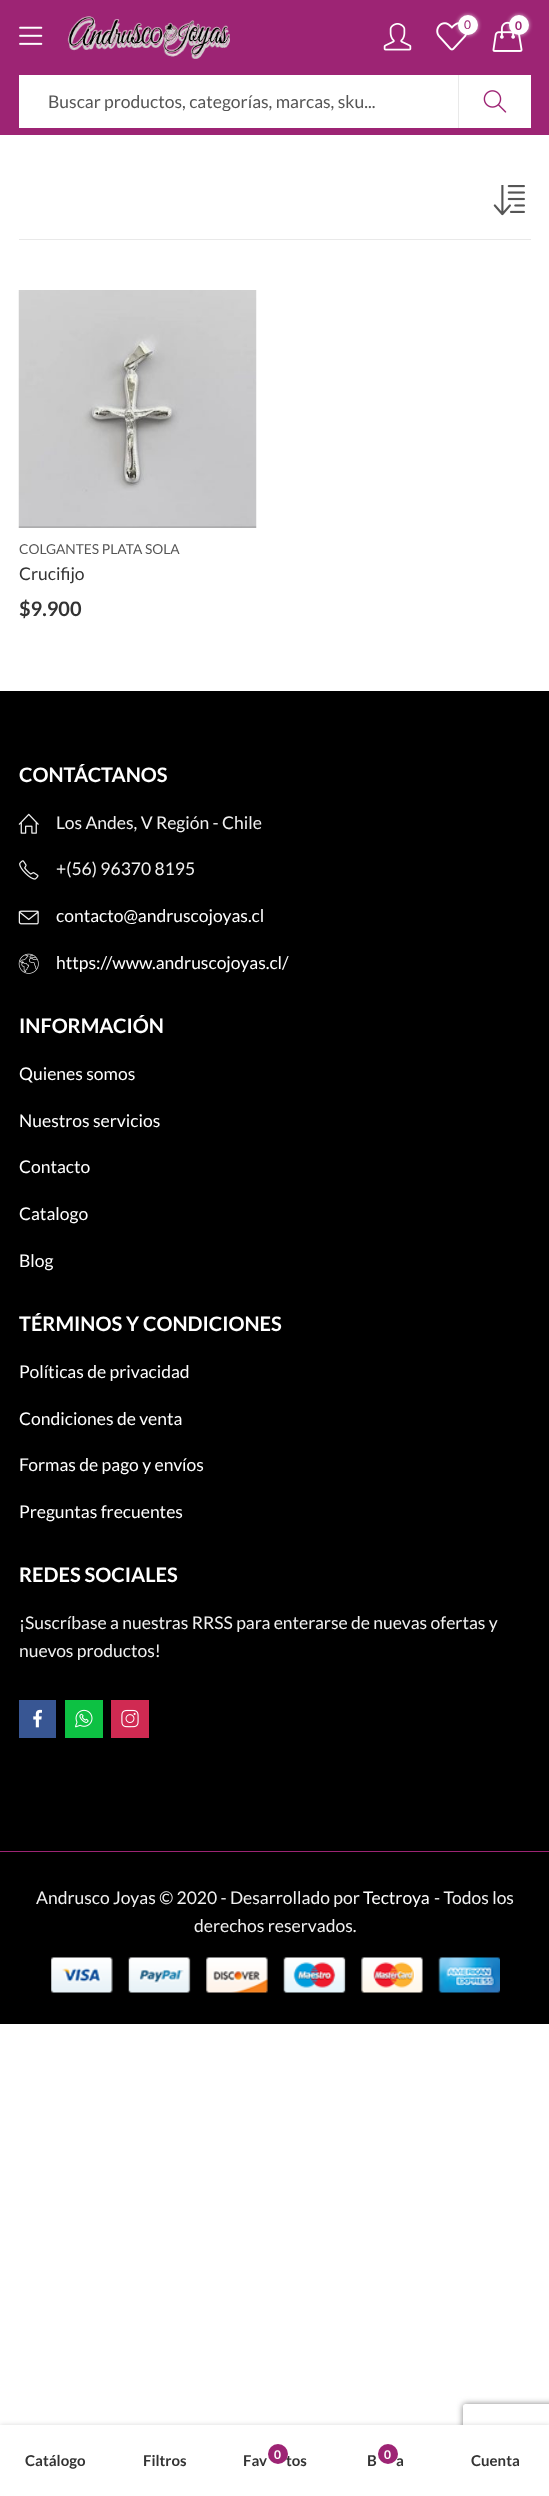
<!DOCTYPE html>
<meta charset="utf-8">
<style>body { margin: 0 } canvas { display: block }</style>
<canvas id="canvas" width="549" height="2496"></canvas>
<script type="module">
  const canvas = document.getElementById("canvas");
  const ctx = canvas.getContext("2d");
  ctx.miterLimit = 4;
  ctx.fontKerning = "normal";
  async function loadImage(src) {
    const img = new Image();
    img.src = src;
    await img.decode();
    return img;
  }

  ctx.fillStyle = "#ffffff";
  ctx.fillRect(0, 0, 549, 2496);
  ctx.fillStyle = "#9d2474";
  ctx.fillRect(0, 0, 549, 135);
  ctx.drawImage(await loadImage("img1.png"), 19, 26, 24, 19);
  ctx.drawImage(await loadImage("img2.png"), 67, 16, 163, 43);
  ctx.drawImage(await loadImage("img3.png"), 383, 23, 29, 28);
  ctx.drawImage(await loadImage("img4.png"), 436, 22, 32, 29);
  ctx.fillStyle = "rgba(255, 255, 255, 0.7)";
  ctx.filter = "blur(2px)";
  ctx.beginPath();
  ctx.roundRect(458, 15, 20, 20, 10);
  ctx.fill();
  ctx.filter = "none";
  ctx.fillStyle = "#ffffff";
  ctx.beginPath();
  ctx.arc(468, 25, 10, 0, Math.PI * 2);
  ctx.fill();
  ctx.font = "12px Lato";
  ctx.fillStyle = "#9d2474";
  ctx.fillText("0", 464, 29);
  ctx.drawImage(await loadImage("img5.png"), 492, 21, 31, 31);
  ctx.fillStyle = "rgba(255, 255, 255, 0.7)";
  ctx.filter = "blur(2px)";
  ctx.beginPath();
  ctx.roundRect(509, 15, 20, 20, 10);
  ctx.fill();
  ctx.filter = "none";
  ctx.fillStyle = "#ffffff";
  ctx.beginPath();
  ctx.arc(519, 25, 10, 0, Math.PI * 2);
  ctx.fill();
  ctx.font = "bold 12px Lato";
  ctx.fillStyle = "#9d2474";
  ctx.fillText("0", 515, 30);
  ctx.fillStyle = "#ffffff";
  ctx.fillRect(19, 75, 439, 53);
  ctx.fillStyle = "#e9e9e9";
  ctx.fillRect(458, 75, 1, 53);
  ctx.save();
  ctx.beginPath();
  ctx.rect(45, 90, 393, 21);
  ctx.clip();
  ctx.font = "17.5px Lato";
  ctx.fillStyle = "#555555";
  ctx.fillText("Buscar productos, categorías, marcas, sku...", 48, 108);
  ctx.restore();
  ctx.fillStyle = "#ffffff";
  ctx.fillRect(459, 75, 72, 53);
  ctx.drawImage(await loadImage("img6.png"), 483, 90, 24, 23);
  ctx.fillStyle = "#e9e9e9";
  ctx.fillRect(19, 239, 512, 1);
  ctx.drawImage(await loadImage("img7.png"), 493, 185, 32, 31);
  ctx.drawImage(await loadImage("img8.png"), 18, 290, 239, 238);
  ctx.font = "13.75px Lato";
  ctx.fillStyle = "#555555";
  ctx.fillText("COLGANTES PLATA SOLA", 19, 554);
  ctx.font = "17.5px Lato";
  ctx.fillStyle = "#333333";
  ctx.fillText("Crucifijo", 19, 580);
  ctx.font = "bold 20px Lato";
  ctx.fillText("$9.900", 19, 616);
  ctx.fillStyle = "#000000";
  ctx.fillRect(0, 691, 549, 1160);
  ctx.fillStyle = "#ffffff";
  ctx.fillText("CONTÁCTANOS", 19, 782);
  ctx.drawImage(await loadImage("img9.png"), 18, 813, 21, 21);
  ctx.font = "17.5px Lato";
  ctx.fillStyle = "#f1f1f1";
  ctx.fillText("Los Andes, V Región - Chile", 56, 829);
  ctx.drawImage(await loadImage("img10.png"), 19, 860, 20, 20);
  ctx.fillText("+(56) 96370 8195", 56, 875);
  ctx.drawImage(await loadImage("img11.png"), 18, 910, 21, 15);
  ctx.fillStyle = "#ffffff";
  ctx.fillText("contacto@andruscojoyas.cl", 56, 922);
  ctx.drawImage(await loadImage("img12.png"), 18, 953, 21, 21);
  ctx.fillText("https://www.andruscojoyas.cl/", 56, 969);
  ctx.font = "bold 20px Lato";
  ctx.fillText("INFORMACIÓN", 19, 1033);
  ctx.font = "17.5px Lato";
  ctx.fillText("Quienes somos", 19, 1080);
  ctx.fillText("Nuestros servicios", 19, 1127);
  ctx.fillText("Contacto", 19, 1173);
  ctx.fillText("Catalogo", 19, 1220);
  ctx.fillText("Blog", 19, 1267);
  ctx.font = "bold 20px Lato";
  ctx.fillText("TÉRMINOS Y CONDICIONES", 19, 1331);
  ctx.font = "17.5px Lato";
  ctx.fillText("Políticas de privacidad", 19, 1378);
  ctx.fillText("Condiciones de venta", 19, 1425);
  ctx.fillText("Formas de pago y envíos", 19, 1471);
  ctx.fillText("Preguntas frecuentes", 19, 1518);
  ctx.font = "bold 20px Lato";
  ctx.fillText("REDES SOCIALES", 19, 1582);
  ctx.font = "17.5px Lato";
  ctx.fillStyle = "#f1f1f1";
  ctx.fillText("¡Suscríbase a nuestras RRSS para enterarse de nuevas ofertas y", 19, 1629);
  ctx.fillText("nuevos productos!", 19, 1657);
  ctx.fillStyle = "#385693";
  ctx.fillRect(19, 1700, 37, 38);
  ctx.drawImage(await loadImage("img13.png"), 33, 1709, 9, 19);
  ctx.fillStyle = "#0dc143";
  ctx.fillRect(65, 1700, 38, 38);
  ctx.drawImage(await loadImage("img14.png"), 75, 1709, 18, 19);
  ctx.fillStyle = "#d02a52";
  ctx.fillRect(111, 1700, 38, 38);
  ctx.drawImage(await loadImage("img15.png"), 121, 1709, 18, 19);
  ctx.fillStyle = "#000000";
  ctx.fillRect(0, 1852, 549, 172);
  ctx.fillStyle = "#9d2474";
  ctx.fillRect(0, 1851, 549, 1);
  ctx.fillStyle = "#f1f1f1";
  ctx.fillText("Andrusco Joyas © 2020 - Desarrollado por", 36, 1904);
  ctx.fillStyle = "#ffffff";
  ctx.fillText("Tectroya", 363, 1904);
  ctx.fillStyle = "#f1f1f1";
  ctx.fillText("- Todos los", 434, 1904);
  ctx.fillText("derechos reservados.", 194, 1932);
  ctx.drawImage(await loadImage("img16.png"), 51, 1957, 449, 36);
  ctx.save();
  ctx.beginPath();
  ctx.moveTo(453, 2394);
  ctx.lineTo(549, 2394);
  ctx.lineTo(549, 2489);
  ctx.lineTo(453, 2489);
  ctx.closePath();
  ctx.moveTo(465.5, 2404);
  ctx.lineTo(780.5, 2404);
  ctx.bezierCurveTo(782, 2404, 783, 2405, 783, 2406.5);
  ctx.lineTo(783, 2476.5);
  ctx.bezierCurveTo(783, 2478, 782, 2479, 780.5, 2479);
  ctx.lineTo(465.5, 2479);
  ctx.bezierCurveTo(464, 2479, 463, 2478, 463, 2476.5);
  ctx.lineTo(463, 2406.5);
  ctx.bezierCurveTo(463, 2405, 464, 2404, 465.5, 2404);
  ctx.closePath();
  ctx.clip("evenodd");
  ctx.fillStyle = "#808080";
  ctx.filter = "blur(3px)";
  ctx.beginPath();
  ctx.roundRect(463, 2404, 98, 75, 2.5);
  ctx.fill();
  ctx.filter = "none";
  ctx.restore();
  ctx.fillStyle = "rgba(0, 0, 0, 0.15)";
  ctx.filter = "blur(2.5px)";
  ctx.beginPath();
  ctx.rect(0, 2425, 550, 71);
  ctx.fill();
  ctx.filter = "none";
  ctx.fillStyle = "#ffffff";
  ctx.fillRect(0, 2425, 549, 71);
  ctx.font = "bold 15px Lato";
  ctx.fillStyle = "#333333";
  ctx.fillText("Catálogo", 25, 2466);
  ctx.fillText("Filtros", 143, 2466);
  ctx.fillStyle = "rgba(255, 255, 255, 0.7)";
  ctx.filter = "blur(2px)";
  ctx.beginPath();
  ctx.roundRect(268, 2444, 20, 20, 10);
  ctx.fill();
  ctx.filter = "none";
  ctx.fillStyle = "#333333";
  ctx.fillText("tos", 286, 2466);
  ctx.fillStyle = "#9d2474";
  ctx.beginPath();
  ctx.arc(278, 2454, 10, 0, Math.PI * 2);
  ctx.fill();
  ctx.font = "bold 12px Lato";
  ctx.fillStyle = "#ffffff";
  ctx.fillText("0", 274, 2459);
  ctx.font = "bold 15px Lato";
  ctx.fillStyle = "#333333";
  ctx.fillText("Fav", 243, 2466);
  ctx.fillStyle = "rgba(255, 255, 255, 0.7)";
  ctx.filter = "blur(2px)";
  ctx.beginPath();
  ctx.roundRect(378, 2444, 20, 20, 10);
  ctx.fill();
  ctx.filter = "none";
  ctx.fillStyle = "#333333";
  ctx.fillText("a", 396, 2466);
  ctx.fillStyle = "#9d2474";
  ctx.beginPath();
  ctx.arc(388, 2454, 10, 0, Math.PI * 2);
  ctx.fill();
  ctx.font = "bold 12px Lato";
  ctx.fillStyle = "#ffffff";
  ctx.fillText("0", 384, 2459);
  ctx.font = "bold 15px Lato";
  ctx.fillStyle = "#333333";
  ctx.fillText("B", 367, 2466);
  ctx.fillText("Cuenta", 471, 2466);
</script>
